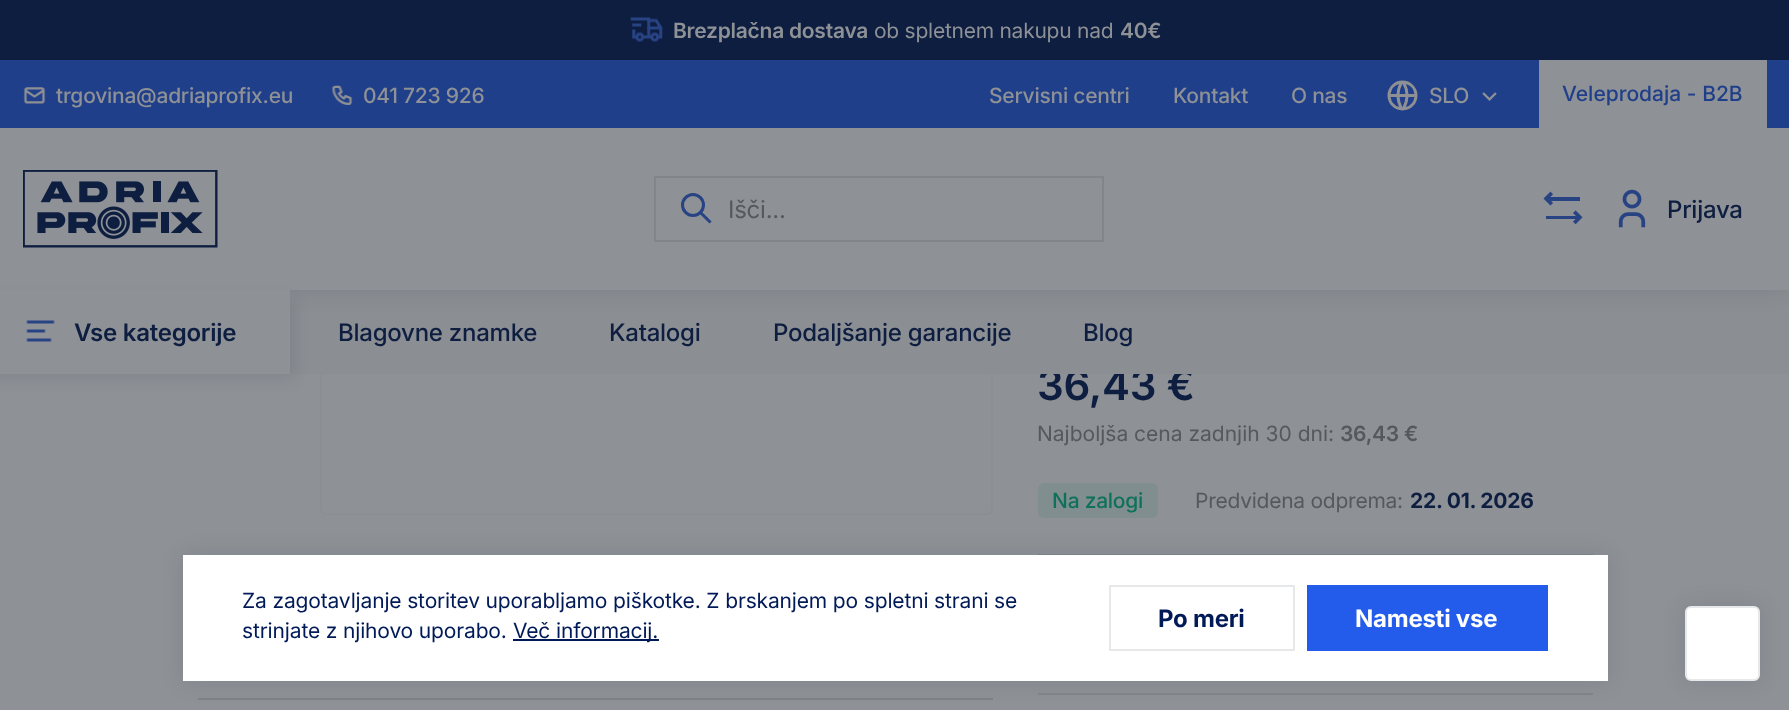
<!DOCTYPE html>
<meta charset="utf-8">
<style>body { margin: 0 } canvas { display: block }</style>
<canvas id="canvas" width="1789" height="710"></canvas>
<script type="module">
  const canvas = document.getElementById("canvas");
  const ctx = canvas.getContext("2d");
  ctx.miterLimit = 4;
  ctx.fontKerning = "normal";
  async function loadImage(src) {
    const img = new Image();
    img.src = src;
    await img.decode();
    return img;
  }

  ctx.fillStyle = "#8e9195";
  ctx.fillRect(0, 0, 1789, 710);
  ctx.beginPath();
  ctx.roundRect(321, -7, 671, 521, 5);
  ctx.strokeStyle = "#8b8e92";
  ctx.lineWidth = 2;
  ctx.stroke();
  ctx.fillStyle = "#0e1e41";
  ctx.fillRect(0, 0, 1789, 60);
  ctx.drawImage(await loadImage("img1.png"), 630, 17, 33, 25);
  ctx.letterSpacing = "-0.25px";
  ctx.font = "600 21px Inter";
  ctx.fillStyle = "#8e9195";
  ctx.fillText("Brezplačna dostava", 673, 38);
  ctx.font = "21px Inter";
  ctx.fillText("ob spletnem nakupu nad", 874, 38);
  ctx.font = "600 21px Inter";
  ctx.fillText("40€", 1120, 38);
  ctx.font = "600 42px Inter";
  ctx.fillStyle = "#0e1e41";
  ctx.fillText("36,43 €", 1037, 400);
  ctx.fillStyle = "#8b8e92";
  ctx.fillRect(290, 290, 1499, 84);
  ctx.fillStyle = "rgba(14, 30, 65, 0.1)";
  ctx.filter = "blur(11px)";
  ctx.beginPath();
  ctx.rect(0, 128, 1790, 162);
  ctx.fill();
  ctx.filter = "none";
  ctx.fillStyle = "#203f8a";
  ctx.fillRect(0, 60, 1789, 68);
  ctx.drawImage(await loadImage("img2.png"), 23, 87, 23, 17);
  ctx.font = "500 21px Inter";
  ctx.fillStyle = "#8e9195";
  ctx.fillText("trgovina@adriaprofix.eu", 56, 103);
  ctx.drawImage(await loadImage("img3.png"), 331, 85, 22, 20);
  ctx.fillText("041 723 926", 363, 103);
  ctx.fillText("Servisni centri", 989, 103);
  ctx.fillText("Kontakt", 1173, 103);
  ctx.fillText("O nas", 1291, 103);
  ctx.drawImage(await loadImage("img4.png"), 1387, 80, 31, 31);
  ctx.fillText("SLO", 1429, 103);
  ctx.drawImage(await loadImage("img5.png"), 1482, 92, 15, 9);
  ctx.fillRect(1539, 60, 228, 68);
  ctx.letterSpacing = "0px";
  ctx.fillStyle = "#203f8a";
  ctx.fillText("Veleprodaja - B2B", 1562, 101);
  ctx.fillStyle = "#8e9195";
  ctx.fillRect(0, 128, 1789, 162);
  ctx.drawImage(await loadImage("img6.png"), 23, 170, 195, 78);
  ctx.strokeStyle = "#82858a";
  ctx.strokeRect(655, 177, 448, 64);
  ctx.drawImage(await loadImage("img7.png"), 681, 193, 31, 31);
  ctx.letterSpacing = "-0.25px";
  ctx.font = "24px Inter";
  ctx.fillStyle = "#55595f";
  ctx.fillText("Išči...", 728, 218);
  ctx.drawImage(await loadImage("img8.png"), 1543, 191, 40, 34);
  ctx.drawImage(await loadImage("img9.png"), 1618, 189, 28, 39);
  ctx.font = "500 24px Inter";
  ctx.fillStyle = "#0e1e41";
  ctx.fillText("Prijava", 1667, 218);
  ctx.fillStyle = "rgba(14, 30, 65, 0.1)";
  ctx.filter = "blur(7.5px)";
  ctx.beginPath();
  ctx.rect(-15, 300, 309, 78);
  ctx.fill();
  ctx.filter = "none";
  ctx.fillStyle = "#8e9195";
  ctx.fillRect(0, 290, 290, 84);
  ctx.drawImage(await loadImage("img10.png"), 26, 320, 29, 22);
  ctx.font = "600 24px Inter";
  ctx.fillStyle = "#0e1e41";
  ctx.fillText("Vse kategorije", 74, 341);
  ctx.font = "500 24px Inter";
  ctx.fillText("Blagovne znamke", 338, 341);
  ctx.fillText("Katalogi", 609, 341);
  ctx.fillText("Podaljšanje garancije", 773, 341);
  ctx.fillText("Blog", 1083, 341);
  ctx.fillStyle = "#7d8288";
  ctx.fillRect(198, 698, 795, 2);
  ctx.fillStyle = "#82858a";
  ctx.fillRect(1038, 554, 555, 1);
  ctx.fillRect(1038, 693, 555, 2);
  ctx.fillStyle = "rgba(0, 26, 87, 0.1)";
  ctx.filter = "blur(11px)";
  ctx.beginPath();
  ctx.rect(183, 555, 1425, 126);
  ctx.fill();
  ctx.filter = "none";
  ctx.fillStyle = "#ffffff";
  ctx.fillRect(183, 555, 1425, 126);
  ctx.letterSpacing = "-0.15px";
  ctx.font = "21px Inter";
  ctx.fillStyle = "#001a57";
  ctx.fillText("Za zagotavljanje storitev uporabljamo piškotke. Z brskanjem po spletni strani se", 242, 608);
  ctx.fillText("strinjate z njihovo uporabo.", 242, 638);
  ctx.fillRect(513, 639, 146, 2);
  ctx.fillText("Več informacij.", 513, 638);
  ctx.strokeStyle = "#e7e8e9";
  ctx.strokeRect(1110, 586, 184, 64);
  ctx.letterSpacing = "-0.25px";
  ctx.font = "bold 24px Inter";
  ctx.fillText("Po meri", 1158, 627);
  ctx.fillStyle = "#235bea";
  ctx.fillRect(1307, 585, 241, 66);
  ctx.fillStyle = "#ffffff";
  ctx.fillText("Namesti vse", 1355, 627);
  ctx.letterSpacing = "0px";
  ctx.font = "21px Inter";
  ctx.fillStyle = "#55595f";
  ctx.fillText("Najboljša cena zadnjih 30 dni:", 1037, 441);
  ctx.letterSpacing = "-0.25px";
  ctx.font = "600 21px Inter";
  ctx.fillText("36,43 €", 1340, 441);
  ctx.fillStyle = "#818e8f";
  ctx.beginPath();
  ctx.roundRect(1038, 483, 120, 35, 6);
  ctx.fill();
  ctx.font = "500 21px Inter";
  ctx.fillStyle = "#0e715b";
  ctx.fillText("Na zalogi", 1052, 508);
  ctx.font = "21px Inter";
  ctx.fillStyle = "#55595f";
  ctx.fillText("Predvidena odprema:", 1195, 508);
  ctx.font = "bold 21px Inter";
  ctx.fillStyle = "#0e1e41";
  ctx.fillText("22. 01. 2026", 1410, 508);
  ctx.fillStyle = "rgba(0, 26, 87, 0.1)";
  ctx.filter = "blur(11px)";
  ctx.beginPath();
  ctx.roundRect(1685, 606, 75, 75, 6);
  ctx.fill();
  ctx.filter = "none";
  ctx.fillStyle = "#ffffff";
  ctx.beginPath();
  ctx.roundRect(1686, 607, 73, 73, 5);
  ctx.fill();
  ctx.stroke();
</script>
